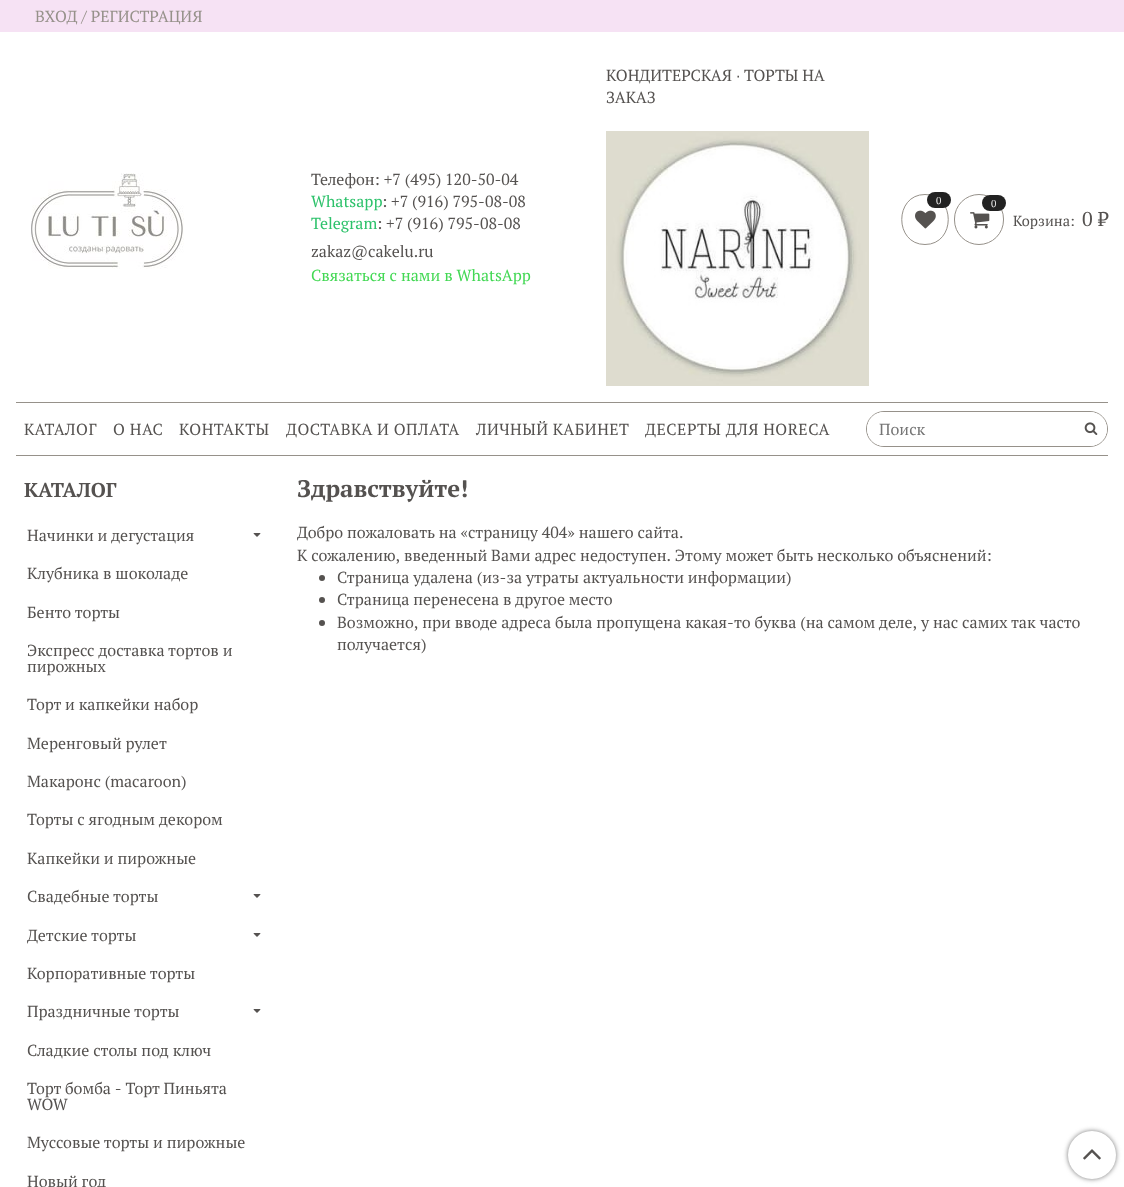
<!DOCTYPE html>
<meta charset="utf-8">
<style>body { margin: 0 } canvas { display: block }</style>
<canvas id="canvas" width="1124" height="1187"></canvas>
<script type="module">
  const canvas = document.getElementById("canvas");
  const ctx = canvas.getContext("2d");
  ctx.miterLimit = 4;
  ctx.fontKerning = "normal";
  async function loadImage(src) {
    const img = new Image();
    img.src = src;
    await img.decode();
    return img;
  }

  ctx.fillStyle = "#ffffff";
  ctx.fillRect(0, 0, 1124, 1187);
  ctx.fillStyle = "#f6e2f4";
  ctx.fillRect(0, 0, 1124, 32);
  ctx.font = "16px PT Serif";
  ctx.fillStyle = "#96918a";
  ctx.fillText("ВХОД / РЕГИСТРАЦИЯ", 35, 22);
  ctx.fillStyle = "#555250";
  ctx.fillText("КОНДИТЕРСКАЯ", 606, 81);
  ctx.font = "16px Liberation Sans";
  ctx.fillText("∙", 736, 81);
  ctx.font = "16px PT Serif";
  ctx.fillText("ТОРТЫ НА", 744, 81);
  ctx.fillText("ЗАКАЗ", 606, 103);
  ctx.drawImage(await loadImage("img1.png"), 606, 131, 263, 255);
  ctx.drawImage(await loadImage("img2.png"), 31, 173, 153, 96);
  ctx.fillText("Телефон: +7 (495) 120-50-04", 311, 185);
  ctx.fillStyle = "#2dc26b";
  ctx.fillText("Whatsapp", 311, 207);
  ctx.fillStyle = "#555250";
  ctx.fillText(": +7 (916) 795-08-08", 382, 207);
  ctx.fillStyle = "#2dc26b";
  ctx.fillText("Telegram", 311, 229);
  ctx.fillStyle = "#555250";
  ctx.fillText(": +7 (916) 795-08-08", 377, 229);
  ctx.fillText("zakaz@cakelu.ru", 311, 257);
  ctx.fillStyle = "#43d854";
  ctx.fillText("Cвязаться с нами в WhatsApp", 311, 281);
  ctx.beginPath();
  ctx.moveTo(925, 194.5);
  ctx.bezierCurveTo(956, 194.5, 956, 244.5, 925, 244.5);
  ctx.bezierCurveTo(894, 244.5, 894, 194.5, 925, 194.5);
  ctx.closePath();
  ctx.strokeStyle = "#96918a";
  ctx.stroke();
  ctx.fillStyle = "#222222";
  ctx.beginPath();
  ctx.roundRect(927, 192, 24, 16, 8);
  ctx.fill();
  ctx.font = "10px PT Serif";
  ctx.fillStyle = "#eeeeee";
  ctx.fillText("0", 936, 204);
  ctx.drawImage(await loadImage("img3.png"), 915, 210, 21, 19);
  ctx.beginPath();
  ctx.roundRect(954.5, 194.5, 49, 50, 24.5);
  ctx.stroke();
  ctx.fillStyle = "#222222";
  ctx.beginPath();
  ctx.roundRect(982, 195, 24, 16, 8);
  ctx.fill();
  ctx.fillStyle = "#eeeeee";
  ctx.fillText("0", 991, 207);
  ctx.drawImage(await loadImage("img4.png"), 970, 212, 20, 17);
  ctx.font = "14.5px PT Serif";
  ctx.fillStyle = "#555250";
  ctx.fillText("Корзина:", 1013, 226);
  ctx.font = "20px PT Serif";
  ctx.fillText("0 ₽", 1082, 226);
  ctx.fillStyle = "#96918a";
  ctx.fillRect(16, 402, 1092, 1);
  ctx.fillRect(16, 455, 1092, 1);
  ctx.letterSpacing = "0.5px";
  ctx.font = "16px PT Serif";
  ctx.fillStyle = "#555250";
  ctx.fillText("КАТАЛОГ", 24, 435);
  ctx.fillText("О НАС", 113, 435);
  ctx.fillText("КОНТАКТЫ", 179, 435);
  ctx.fillText("ДОСТАВКА И ОПЛАТА", 286, 435);
  ctx.fillText("ЛИЧНЫЙ КАБИНЕТ", 476, 435);
  ctx.fillText("ДЕСЕРТЫ ДЛЯ HORECA", 645, 435);
  ctx.beginPath();
  ctx.roundRect(866.5, 411.5, 241, 35, 17.5);
  ctx.stroke();
  ctx.fillStyle = "#ffffff";
  ctx.beginPath();
  ctx.roundRect(867, 412, 208, 34, [17, 0, 0, 17]);
  ctx.fill();
  ctx.letterSpacing = "0px";
  ctx.fillStyle = "#757575";
  ctx.fillText("Поиск", 879, 435);
  ctx.fillStyle = "#ffffff";
  ctx.beginPath();
  ctx.roundRect(1075, 412, 32, 34, [0, 17, 17, 0]);
  ctx.fill();
  ctx.drawImage(await loadImage("img5.png"), 1084, 422, 14, 13);
  ctx.font = "bold 20px PT Serif";
  ctx.fillStyle = "#555250";
  ctx.fillText("КАТАЛОГ", 24, 497);
  ctx.font = "16px PT Serif";
  ctx.fillText("Начинки и дегустация", 27, 541);
  ctx.drawImage(await loadImage("img6.png"), 253, 533, 8, 4);
  ctx.fillText("Клубника в шоколаде", 27, 579);
  ctx.fillText("Бенто торты", 27, 618);
  ctx.fillText("Экспресс доставка тортов и", 27, 656);
  ctx.fillText("пирожных", 27, 672);
  ctx.fillText("Торт и капкейки набор", 27, 710);
  ctx.fillText("Меренговый рулет", 27, 749);
  ctx.fillText("Макаронс (macaroon)", 27, 787);
  ctx.fillText("Торты с ягодным декором", 27, 825);
  ctx.fillText("Капкейки и пирожные", 27, 864);
  ctx.fillText("Свадебные торты", 27, 902);
  ctx.drawImage(await loadImage("img6.png"), 253, 894, 8, 4);
  ctx.fillText("Детские торты", 27, 941);
  ctx.drawImage(await loadImage("img6.png"), 253, 933, 8, 4);
  ctx.fillText("Корпоративные торты", 27, 979);
  ctx.fillText("Праздничные торты", 27, 1017);
  ctx.drawImage(await loadImage("img6.png"), 253, 1009, 8, 4);
  ctx.fillText("Сладкие столы под ключ", 27, 1056);
  ctx.fillText("Торт бомба - Торт Пиньята", 27, 1094);
  ctx.fillText("WOW", 27, 1110);
  ctx.fillText("Муссовые торты и пирожные", 27, 1148);
  ctx.fillText("Новый год", 27, 1187);
  ctx.font = "bold 24px PT Serif";
  ctx.fillText("Здравствуйте!", 297, 497);
  ctx.font = "16px PT Serif";
  ctx.fillText("Добро пожаловать на «страницу 404» нашего сайта.", 297, 538);
  ctx.fillText("К сожалению, введенный Вами адрес недоступен. Этому может быть несколько объяснений:", 297, 561);
  ctx.beginPath();
  ctx.arc(322, 578, 3, 0, Math.PI * 2);
  ctx.fill();
  ctx.fillText("Страница удалена (из-за утраты актуальности информации)", 337, 583);
  ctx.beginPath();
  ctx.arc(322, 600, 3, 0, Math.PI * 2);
  ctx.fill();
  ctx.fillText("Страница перенесена в другое место", 337, 605);
  ctx.beginPath();
  ctx.arc(322, 623, 3, 0, Math.PI * 2);
  ctx.fill();
  ctx.fillText("Возможно, при вводе адреса была пропущена какая-то буква (на самом деле, у нас самих так часто", 337, 628);
  ctx.fillText("получается)", 337, 650);
  ctx.fillStyle = "#777777";
  ctx.filter = "blur(2.5px)";
  ctx.beginPath();
  ctx.roundRect(1068, 1131, 48, 48, 24);
  ctx.fill();
  ctx.filter = "none";
  ctx.fillStyle = "#ffffff";
  ctx.beginPath();
  ctx.arc(1092, 1155, 24, 0, Math.PI * 2);
  ctx.fill();
  ctx.drawImage(await loadImage("img7.png"), 1083, 1149, 18, 11);
</script>
